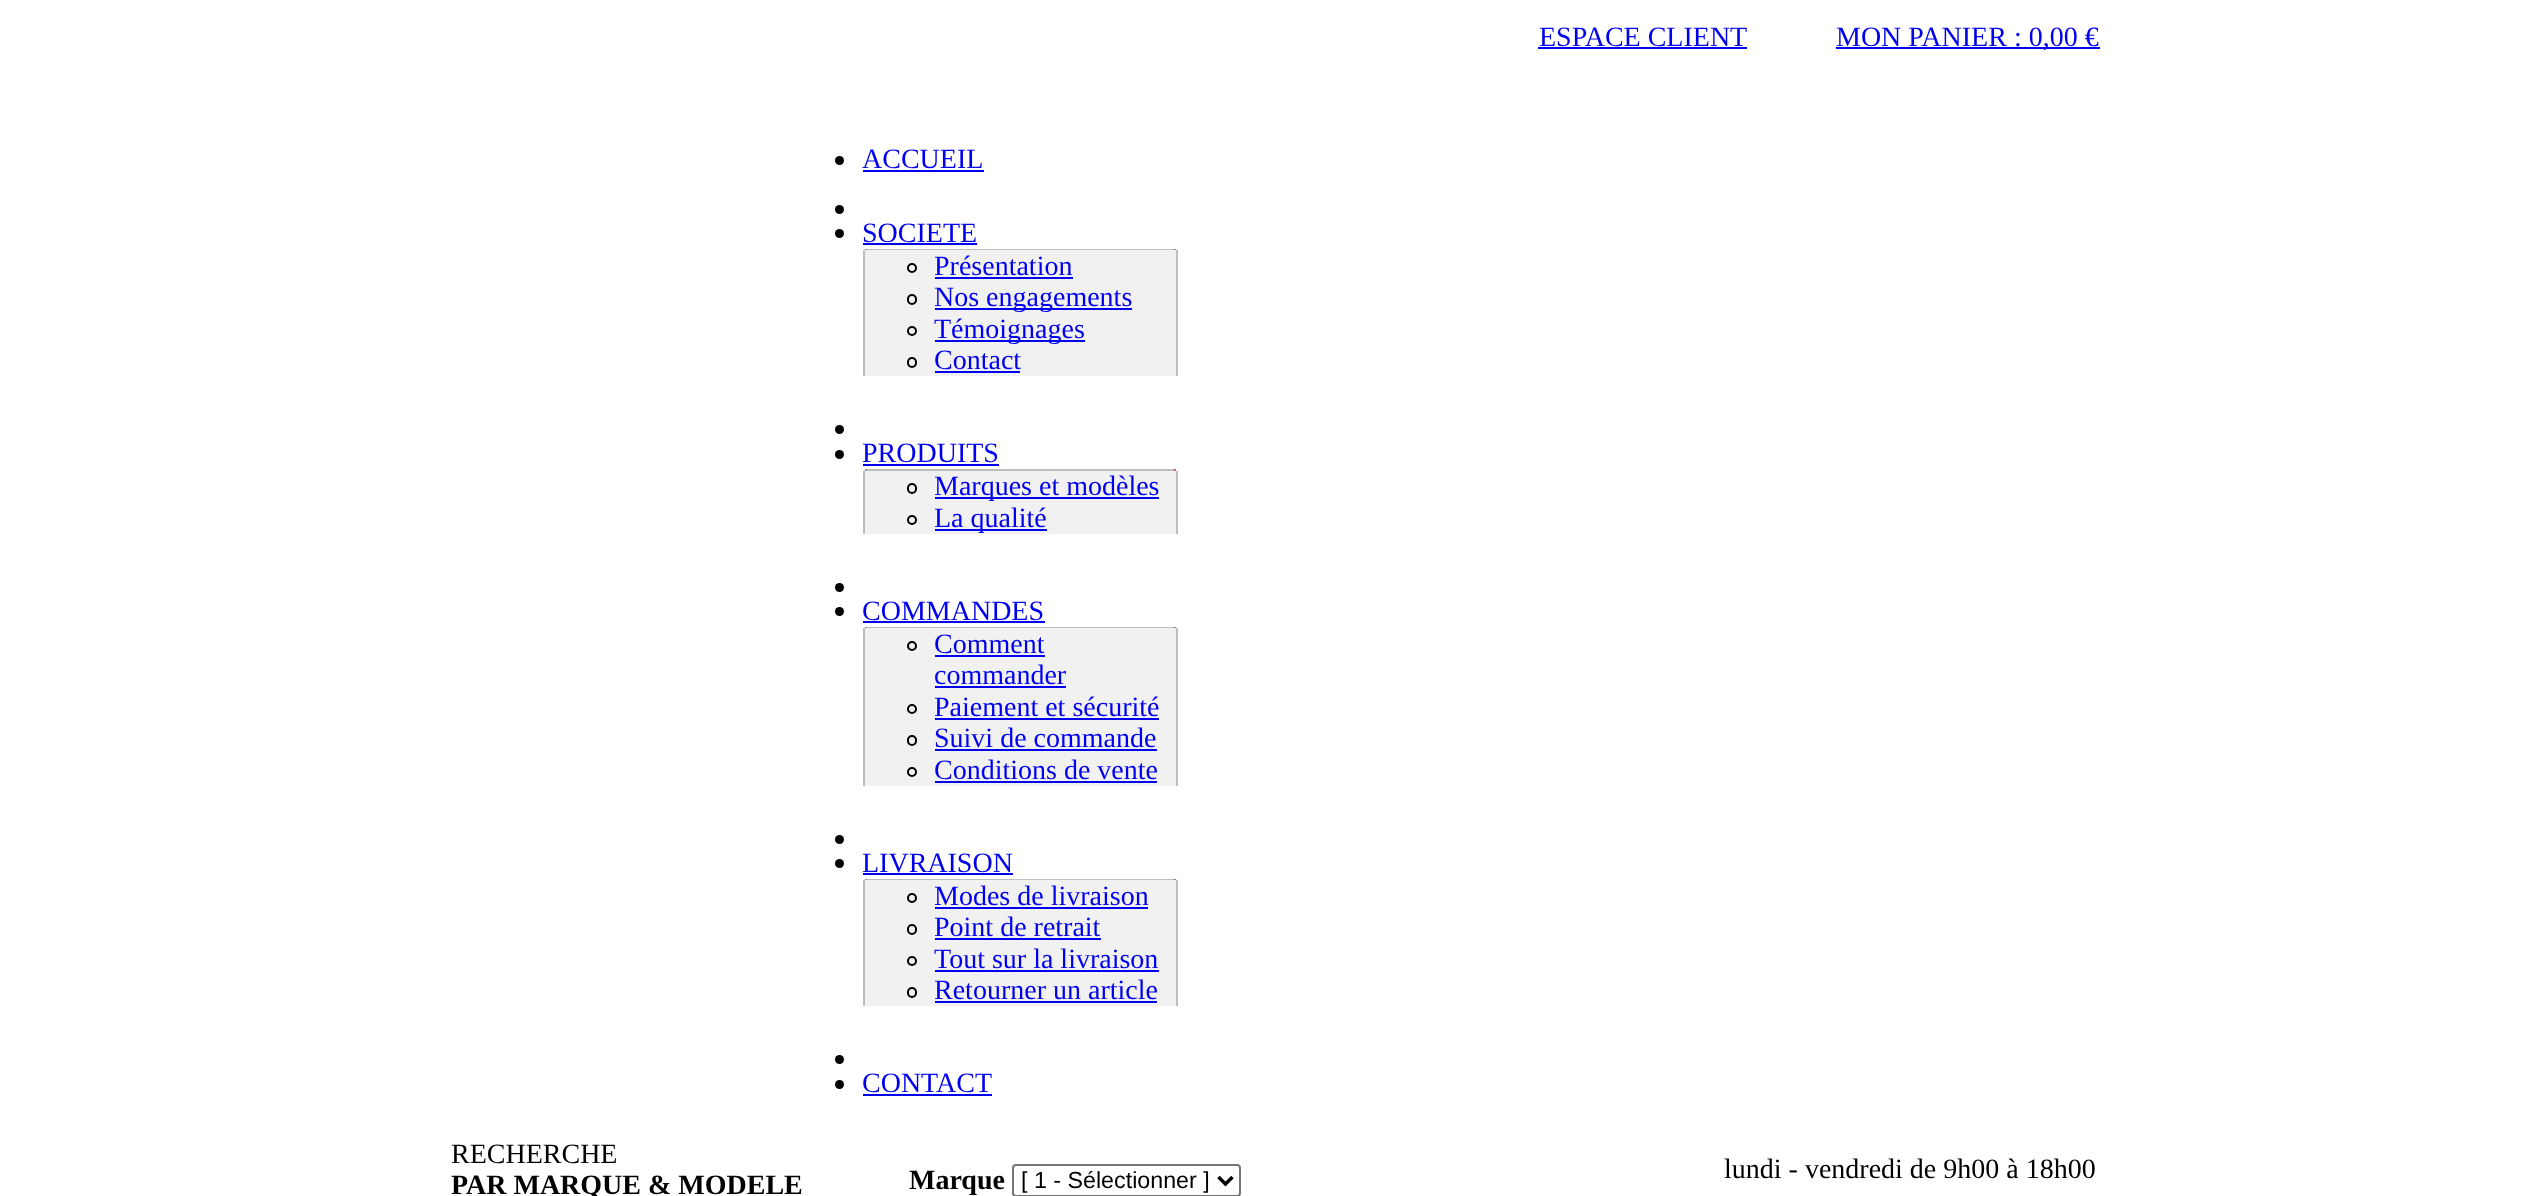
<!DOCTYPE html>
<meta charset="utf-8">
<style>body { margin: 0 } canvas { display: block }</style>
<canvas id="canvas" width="2541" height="1196"></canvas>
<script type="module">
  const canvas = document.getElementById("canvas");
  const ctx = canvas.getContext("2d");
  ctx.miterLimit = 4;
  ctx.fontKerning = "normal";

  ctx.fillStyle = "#ffffff";
  ctx.fillRect(0, 0, 2541, 1196);
  ctx.font = "28px Liberation Serif";
  ctx.fillStyle = "#0000ee";
  ctx.fillText("ESPACE CLIENT", 1539, 46);
  ctx.fillRect(1538, 47, 209, 2);
  ctx.fillRect(1836, 47, 264, 2);
  ctx.fillText("MON PANIER : 0,00 €", 1836, 46);
  ctx.fillStyle = "#000000";
  ctx.beginPath();
  ctx.arc(839.5, 160.5, 4.5, 0, Math.PI * 2);
  ctx.fill();
  ctx.fillStyle = "#0000ee";
  ctx.fillText("ACCUEIL", 862, 168);
  ctx.fillRect(863, 170, 121, 2);
  ctx.fillStyle = "#000000";
  ctx.beginPath();
  ctx.arc(839.5, 209.5, 4.5, 0, Math.PI * 2);
  ctx.fill();
  ctx.beginPath();
  ctx.arc(839.5, 233.5, 4.5, 0, Math.PI * 2);
  ctx.fill();
  ctx.fillStyle = "#0000ee";
  ctx.fillText("SOCIETE", 862, 242);
  ctx.fillRect(863, 243, 114, 2);
  ctx.fillStyle = "#cd6752";
  ctx.fillRect(865, 249, 2, 1);
  ctx.fillStyle = "#c1a9a5";
  ctx.fillRect(866, 249, 2, 1);
  ctx.fillStyle = "#bdbdbd";
  ctx.fillRect(868, 249, 305, 1);
  ctx.fillStyle = "#c1a9a5";
  ctx.fillRect(1173, 249, 2, 1);
  ctx.fillStyle = "#cd6752";
  ctx.fillRect(1174, 249, 2, 1);
  ctx.fillStyle = "#bdbdbd";
  ctx.fillRect(863, 250, 2, 126);
  ctx.fillStyle = "#f1f1f1";
  ctx.fillRect(865, 250, 311, 126);
  ctx.beginPath();
  ctx.arc(912, 268, 4, 0, Math.PI * 2);
  ctx.strokeStyle = "#000000";
  ctx.lineWidth = 2;
  ctx.stroke();
  ctx.fillStyle = "#0000ee";
  ctx.fillText("Présentation", 934, 275);
  ctx.fillRect(935, 277, 138, 2);
  ctx.beginPath();
  ctx.roundRect(908, 295, 8, 9, 4);
  ctx.stroke();
  ctx.fillRect(935, 308, 197, 2);
  ctx.fillText("Nos engagements", 934, 306);
  ctx.beginPath();
  ctx.arc(912, 331, 4, 0, Math.PI * 2);
  ctx.stroke();
  ctx.fillRect(935, 340, 150, 2);
  ctx.fillText("Témoignages", 934, 338);
  ctx.beginPath();
  ctx.roundRect(908, 358, 8, 9, 4);
  ctx.stroke();
  ctx.fillText("Contact", 934, 369);
  ctx.fillRect(935, 371, 85, 2);
  ctx.fillStyle = "#bdbdbd";
  ctx.fillRect(1176, 250, 2, 126);
  ctx.fillStyle = "#000000";
  ctx.beginPath();
  ctx.arc(839.5, 429.5, 4.5, 0, Math.PI * 2);
  ctx.fill();
  ctx.beginPath();
  ctx.arc(839.5, 454.5, 4.5, 0, Math.PI * 2);
  ctx.fill();
  ctx.fillStyle = "#0000ee";
  ctx.fillText("PRODUITS", 862, 462);
  ctx.fillRect(863, 464, 136, 2);
  ctx.fillStyle = "#cd6752";
  ctx.fillRect(865, 469, 2, 2);
  ctx.fillStyle = "#c1a9a5";
  ctx.fillRect(866, 469, 2, 2);
  ctx.fillStyle = "#bdbdbd";
  ctx.fillRect(868, 469, 305, 2);
  ctx.fillStyle = "#c1a9a5";
  ctx.fillRect(1173, 469, 2, 2);
  ctx.fillStyle = "#cd6752";
  ctx.fillRect(1174, 469, 2, 2);
  ctx.fillStyle = "#bdbdbd";
  ctx.fillRect(863, 471, 2, 63);
  ctx.fillStyle = "#f1f1f1";
  ctx.fillRect(865, 471, 311, 63);
  ctx.beginPath();
  ctx.roundRect(908, 484, 8, 9, 4);
  ctx.stroke();
  ctx.fillStyle = "#0000ee";
  ctx.fillRect(935, 497, 224, 2);
  ctx.fillText("Marques et modèles", 934, 495);
  ctx.beginPath();
  ctx.arc(912, 520, 4, 0, Math.PI * 2);
  ctx.stroke();
  ctx.fillRect(935, 529, 112, 2);
  ctx.fillText("La qualité", 934, 527);
  ctx.fillStyle = "#bdbdbd";
  ctx.fillRect(1176, 471, 2, 63);
  ctx.fillStyle = "#000000";
  ctx.beginPath();
  ctx.arc(839.5, 587.5, 4.5, 0, Math.PI * 2);
  ctx.fill();
  ctx.beginPath();
  ctx.arc(839.5, 611.5, 4.5, 0, Math.PI * 2);
  ctx.fill();
  ctx.fillStyle = "#0000ee";
  ctx.fillText("COMMANDES", 862, 620);
  ctx.fillRect(863, 621, 182, 2);
  ctx.fillStyle = "#cd6752";
  ctx.fillRect(865, 627, 2, 1);
  ctx.fillStyle = "#c1a9a5";
  ctx.fillRect(866, 627, 2, 1);
  ctx.fillStyle = "#bdbdbd";
  ctx.fillRect(868, 627, 305, 1);
  ctx.fillStyle = "#c1a9a5";
  ctx.fillRect(1173, 627, 2, 1);
  ctx.fillStyle = "#cd6752";
  ctx.fillRect(1174, 627, 2, 1);
  ctx.fillStyle = "#bdbdbd";
  ctx.fillRect(863, 628, 2, 158);
  ctx.fillStyle = "#f1f1f1";
  ctx.fillRect(865, 628, 311, 158);
  ctx.beginPath();
  ctx.arc(912, 646, 4, 0, Math.PI * 2);
  ctx.stroke();
  ctx.fillStyle = "#0000ee";
  ctx.fillText("Comment", 934, 653);
  ctx.fillRect(935, 655, 110, 2);
  ctx.fillText("commander", 934, 684);
  ctx.fillRect(935, 686, 131, 2);
  ctx.beginPath();
  ctx.arc(912, 709, 4, 0, Math.PI * 2);
  ctx.stroke();
  ctx.fillText("Paiement et sécurité", 934, 716);
  ctx.fillRect(935, 718, 224, 2);
  ctx.beginPath();
  ctx.roundRect(908, 736, 8, 9, 4);
  ctx.stroke();
  ctx.fillText("Suivi de commande", 934, 747);
  ctx.fillRect(935, 749, 222, 2);
  ctx.beginPath();
  ctx.arc(912, 772, 4, 0, Math.PI * 2);
  ctx.stroke();
  ctx.fillText("Conditions de vente", 934, 779);
  ctx.fillRect(935, 781, 222, 2);
  ctx.fillStyle = "#bdbdbd";
  ctx.fillRect(1176, 628, 2, 158);
  ctx.fillStyle = "#000000";
  ctx.beginPath();
  ctx.arc(839.5, 839.5, 4.5, 0, Math.PI * 2);
  ctx.fill();
  ctx.beginPath();
  ctx.arc(839.5, 863.5, 4.5, 0, Math.PI * 2);
  ctx.fill();
  ctx.fillStyle = "#0000ee";
  ctx.fillText("LIVRAISON", 862, 872);
  ctx.fillRect(863, 873, 150, 2);
  ctx.fillStyle = "#cd6752";
  ctx.fillRect(865, 879, 2, 1);
  ctx.fillStyle = "#c1a9a5";
  ctx.fillRect(866, 879, 2, 1);
  ctx.fillStyle = "#bdbdbd";
  ctx.fillRect(868, 879, 305, 1);
  ctx.fillStyle = "#c1a9a5";
  ctx.fillRect(1173, 879, 2, 1);
  ctx.fillStyle = "#cd6752";
  ctx.fillRect(1174, 879, 2, 1);
  ctx.fillStyle = "#bdbdbd";
  ctx.fillRect(863, 880, 2, 126);
  ctx.fillStyle = "#f1f1f1";
  ctx.fillRect(865, 880, 311, 126);
  ctx.beginPath();
  ctx.arc(912, 898, 4, 0, Math.PI * 2);
  ctx.stroke();
  ctx.fillStyle = "#0000ee";
  ctx.fillText("Modes de livraison", 934, 905);
  ctx.fillRect(935, 907, 213, 2);
  ctx.beginPath();
  ctx.roundRect(908, 925, 8, 9, 4);
  ctx.stroke();
  ctx.fillText("Point de retrait", 934, 936);
  ctx.fillRect(935, 938, 166, 2);
  ctx.beginPath();
  ctx.arc(912, 961, 4, 0, Math.PI * 2);
  ctx.stroke();
  ctx.fillText("Tout sur la livraison", 934, 968);
  ctx.fillRect(935, 970, 224, 2);
  ctx.beginPath();
  ctx.roundRect(908, 988, 8, 9, 4);
  ctx.stroke();
  ctx.fillText("Retourner un article", 934, 999);
  ctx.fillRect(935, 1001, 222, 2);
  ctx.fillStyle = "#bdbdbd";
  ctx.fillRect(1176, 880, 2, 126);
  ctx.fillStyle = "#000000";
  ctx.beginPath();
  ctx.arc(839.5, 1059.5, 4.5, 0, Math.PI * 2);
  ctx.fill();
  ctx.beginPath();
  ctx.arc(839.5, 1084.5, 4.5, 0, Math.PI * 2);
  ctx.fill();
  ctx.fillStyle = "#0000ee";
  ctx.fillText("CONTACT", 862, 1092);
  ctx.fillRect(863, 1094, 129, 2);
  ctx.fillStyle = "#000000";
  ctx.fillText("RECHERCHE", 451, 1163);
  ctx.font = "bold 28px Liberation Serif";
  ctx.fillText("PAR MARQUE & MODELE", 451, 1194);
  ctx.fillText("Marque", 909, 1189);
  ctx.beginPath();
  ctx.roundRect(1013, 1165, 227, 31, 3);
  ctx.strokeStyle = "#767676";
  ctx.stroke();
  ctx.beginPath();
  ctx.moveTo(1218.5, 1177);
  ctx.lineTo(1225.5, 1184);
  ctx.lineTo(1232.5, 1177);
  ctx.strokeStyle = "#000000";
  ctx.lineWidth = 3.5;
  ctx.stroke();
  ctx.font = "23.25px Liberation Sans";
  ctx.fillText("[ 1 - Sélectionner ]", 1021, 1188);
  ctx.font = "28px Liberation Serif";
  ctx.fillText("lundi - vendredi de 9h00 à 18h00", 1724, 1178);
</script>
